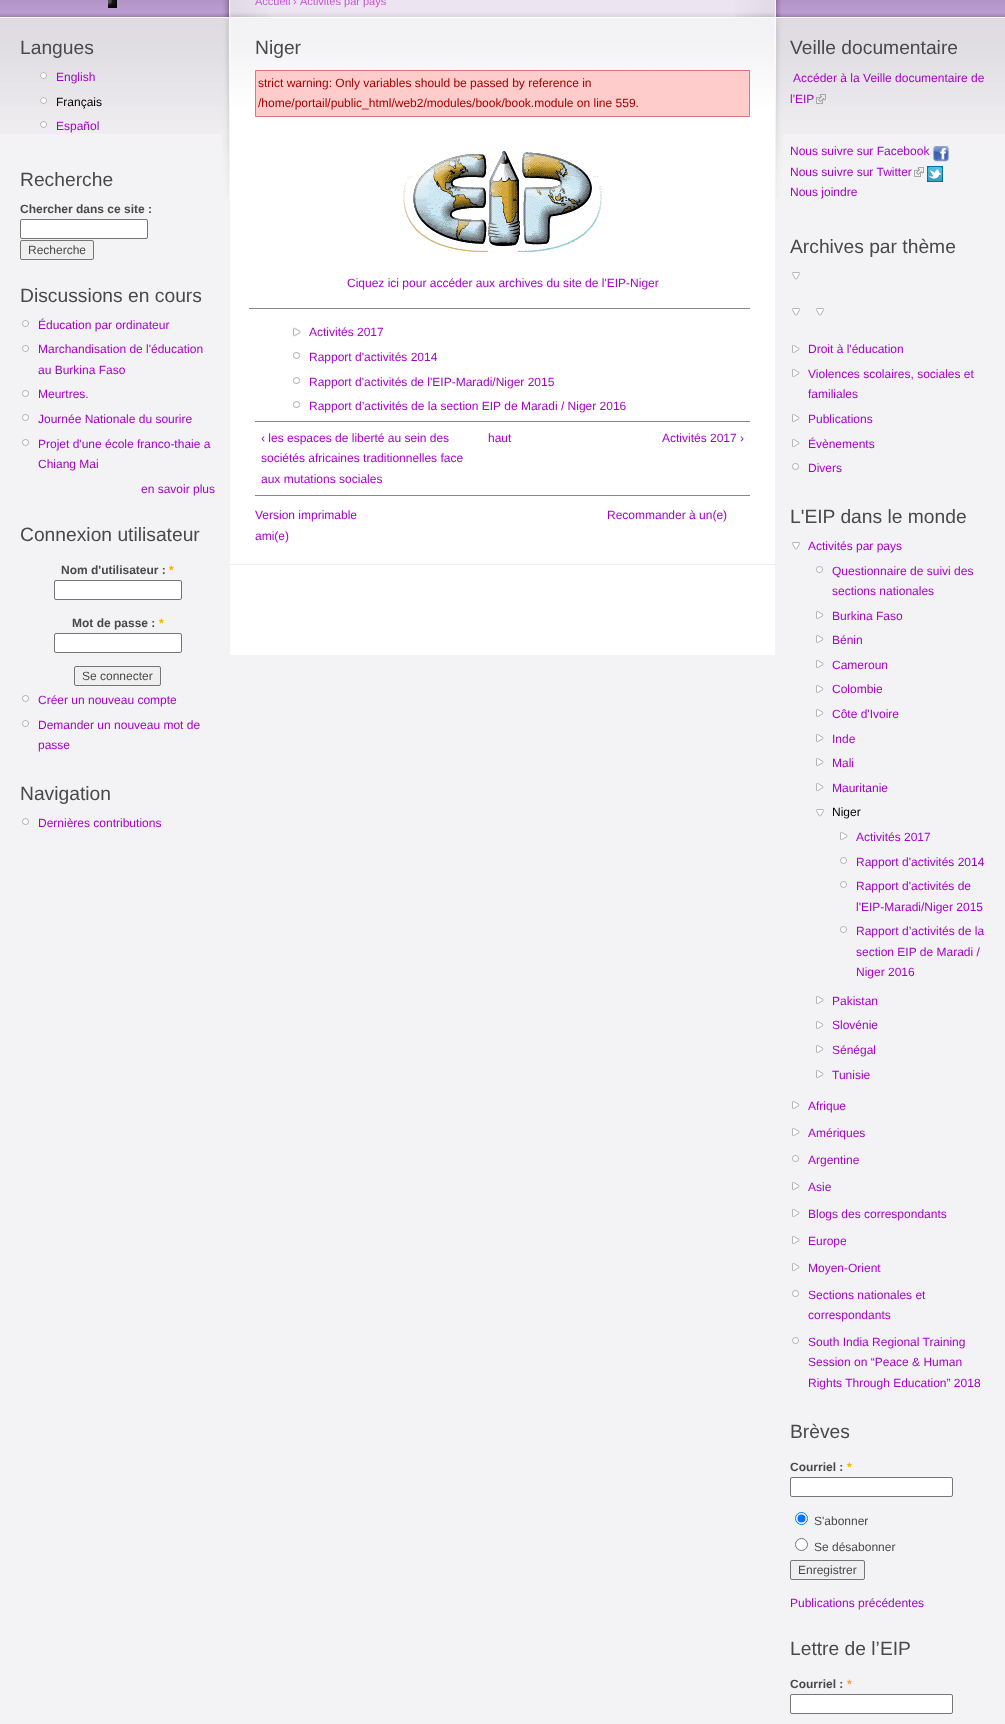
<!DOCTYPE html>
<meta charset="utf-8">
<style>body { margin: 0 } canvas { display: block }</style>
<canvas id="canvas" width="1005" height="1724"></canvas>
<script type="module">
  const canvas = document.getElementById("canvas");
  const ctx = canvas.getContext("2d");
  ctx.miterLimit = 4;
  ctx.fontKerning = "normal";
  async function loadImage(src) {
    const img = new Image();
    img.src = src;
    await img.decode();
    return img;
  }

  ctx.fillStyle = "#f3f2f4";
  ctx.fillRect(0, 0, 1005, 1724);
  ctx.drawImage(await loadImage("img1.png"), 0, 0, 1005, 134);
  ctx.drawImage(await loadImage("img2.png"), 108, 0, 9, 8);
  ctx.fillStyle = "#ffffff";
  ctx.fillRect(230, 117, 545, 538);
  ctx.drawImage(await loadImage("img3.png"), 268, 0, 467, 70);
  ctx.drawImage(await loadImage("img4.png"), 735, 0, 48, 198);
  ctx.drawImage(await loadImage("img5.png"), 222, 0, 46, 198);
  ctx.font = "11px Liberation Sans";
  ctx.fillStyle = "#c753d7";
  ctx.fillText("Accueil", 255, 5);
  ctx.fillText("›", 293, 5);
  ctx.fillText("Activités par pays", 300, 5);
  ctx.font = "19.25px Liberation Sans";
  ctx.fillStyle = "#494949";
  ctx.fillText("Niger", 255, 54);
  ctx.fillStyle = "#ffcccc";
  ctx.beginPath();
  ctx.rect(255.5, 70.5, 494, 46);
  ctx.fill();
  ctx.strokeStyle = "#dd7777";
  ctx.stroke();
  ctx.font = "12px Liberation Sans";
  ctx.fillStyle = "#a30000";
  ctx.fillText("strict warning: Only variables should be passed by reference in", 258, 87);
  ctx.fillText("/home/portail/public_html/web2/modules/book/book.module on line 559.", 258, 107);
  ctx.fillStyle = "#eeeeee";
  ctx.fillRect(229, 564, 547, 1);
  ctx.drawImage(await loadImage("img6.png"), 403, 151, 199, 101);
  ctx.fillStyle = "#a304c8";
  ctx.fillText("Ciquez ici pour accéder aux archives du site de l'EIP-Niger", 347, 287);
  ctx.fillStyle = "#888888";
  ctx.fillRect(249, 308, 501, 1);
  ctx.drawImage(await loadImage("img7.png"), 293, 327, 8, 10);
  ctx.fillStyle = "#a304c8";
  ctx.fillText("Activités 2017", 309, 336);
  ctx.drawImage(await loadImage("img8.png"), 293, 352, 7, 7);
  ctx.fillText("Rapport d'activités 2014", 309, 361);
  ctx.drawImage(await loadImage("img8.png"), 293, 377, 7, 7);
  ctx.fillText("Rapport d'activités de l'EIP-Maradi/Niger 2015", 309, 386);
  ctx.drawImage(await loadImage("img8.png"), 293, 401, 7, 7);
  ctx.fillText("Rapport d’activités de la section EIP de Maradi / Niger 2016", 309, 410);
  ctx.fillStyle = "#888888";
  ctx.fillRect(255, 421, 495, 1);
  ctx.fillRect(255, 495, 495, 1);
  ctx.fillStyle = "#a304c8";
  ctx.fillText("‹ les espaces de liberté au sein des", 261, 442);
  ctx.fillText("sociétés africaines traditionnelles face", 261, 462);
  ctx.fillText("aux mutations sociales", 261, 483);
  ctx.fillText("haut", 488, 442);
  ctx.fillText("Activités 2017 ›", 662, 442);
  ctx.fillText("Version imprimable", 255, 519);
  ctx.fillText("Recommander à un(e)", 607, 519);
  ctx.fillText("ami(e)", 255, 540);
  ctx.font = "19.25px Liberation Sans";
  ctx.fillStyle = "#494949";
  ctx.fillText("Langues", 20, 54);
  ctx.drawImage(await loadImage("img9.png"), 40, 72, 7, 7);
  ctx.font = "12px Liberation Sans";
  ctx.fillStyle = "#a304c8";
  ctx.fillText("English", 56, 81);
  ctx.drawImage(await loadImage("img10.png"), 40, 97, 7, 7);
  ctx.fillStyle = "#000000";
  ctx.fillText("Français", 56, 106);
  ctx.drawImage(await loadImage("img11.png"), 40, 121, 7, 7);
  ctx.fillStyle = "#a304c8";
  ctx.fillText("Español", 56, 130);
  ctx.font = "19.25px Liberation Sans";
  ctx.fillStyle = "#494949";
  ctx.fillText("Recherche", 20, 186);
  ctx.font = "bold 12px Liberation Sans";
  ctx.fillText("Chercher dans ce site :", 20, 213);
  ctx.fillStyle = "#ffffff";
  ctx.beginPath();
  ctx.roundRect(20.5, 219.5, 127, 19, 1.5);
  ctx.fill();
  ctx.strokeStyle = "#767676";
  ctx.stroke();
  ctx.fillStyle = "#efefef";
  ctx.beginPath();
  ctx.roundRect(20.5, 240.5, 73, 19, 1.5);
  ctx.fill();
  ctx.stroke();
  ctx.font = "12px Liberation Sans";
  ctx.fillStyle = "#494949";
  ctx.fillText("Recherche", 28, 254);
  ctx.font = "19.25px Liberation Sans";
  ctx.fillText("Discussions en cours", 20, 302);
  ctx.drawImage(await loadImage("img12.png"), 22, 320, 7, 7);
  ctx.font = "12px Liberation Sans";
  ctx.fillStyle = "#a304c8";
  ctx.fillText("Éducation par ordinateur", 38, 329);
  ctx.drawImage(await loadImage("img12.png"), 22, 345, 7, 7);
  ctx.fillText("Marchandisation de l'éducation", 38, 353);
  ctx.fillText("au Burkina Faso", 38, 374);
  ctx.drawImage(await loadImage("img12.png"), 22, 390, 7, 7);
  ctx.fillText("Meurtres.", 38, 398);
  ctx.drawImage(await loadImage("img12.png"), 22, 414, 7, 7);
  ctx.fillText("Journée Nationale du sourire", 38, 423);
  ctx.drawImage(await loadImage("img12.png"), 22, 439, 7, 7);
  ctx.fillText("Projet d'une école franco-thaie a", 38, 448);
  ctx.fillText("Chiang Mai", 38, 468);
  ctx.fillText("en savoir plus", 141, 493);
  ctx.font = "19.25px Liberation Sans";
  ctx.fillStyle = "#494949";
  ctx.fillText("Connexion utilisateur", 20, 541);
  ctx.font = "bold 12px Liberation Sans";
  ctx.fillText("Nom d'utilisateur :", 61, 574);
  ctx.fillStyle = "#ffae00";
  ctx.fillText("*", 169, 574);
  ctx.fillStyle = "#ffffff";
  ctx.beginPath();
  ctx.roundRect(54.5, 580.5, 127, 19, 1.5);
  ctx.fill();
  ctx.stroke();
  ctx.fillStyle = "#494949";
  ctx.fillText("Mot de passe :", 72, 627);
  ctx.fillStyle = "#ffae00";
  ctx.fillText("*", 159, 627);
  ctx.fillStyle = "#ffffff";
  ctx.beginPath();
  ctx.roundRect(54.5, 633.5, 127, 19, 1.5);
  ctx.fill();
  ctx.stroke();
  ctx.fillStyle = "#efefef";
  ctx.beginPath();
  ctx.roundRect(74.5, 666.5, 86, 19, 1.5);
  ctx.fill();
  ctx.stroke();
  ctx.font = "12px Liberation Sans";
  ctx.fillStyle = "#494949";
  ctx.fillText("Se connecter", 82, 680);
  ctx.drawImage(await loadImage("img12.png"), 22, 695, 7, 7);
  ctx.fillStyle = "#a304c8";
  ctx.fillText("Créer un nouveau compte", 38, 704);
  ctx.drawImage(await loadImage("img12.png"), 22, 720, 7, 7);
  ctx.fillText("Demander un nouveau mot de", 38, 729);
  ctx.fillText("passe", 38, 749);
  ctx.font = "19.25px Liberation Sans";
  ctx.fillStyle = "#494949";
  ctx.fillText("Navigation", 20, 800);
  ctx.drawImage(await loadImage("img12.png"), 22, 818, 7, 7);
  ctx.font = "12px Liberation Sans";
  ctx.fillStyle = "#a304c8";
  ctx.fillText("Dernières contributions", 38, 827);
  ctx.font = "19.25px Liberation Sans";
  ctx.fillStyle = "#494949";
  ctx.fillText("Veille documentaire", 790, 54);
  ctx.font = "12px Liberation Sans";
  ctx.fillStyle = "#a304c8";
  ctx.fillText("Accéder à la Veille documentaire de", 793, 82);
  ctx.fillText("l'EIP", 790, 103);
  ctx.drawImage(await loadImage("img13.png"), 816, 94, 10, 10);
  ctx.fillText("Nous suivre sur Facebook", 790, 155);
  ctx.drawImage(await loadImage("img14.png"), 933, 146, 16, 16);
  ctx.fillText("Nous suivre sur Twitter", 790, 176);
  ctx.drawImage(await loadImage("img15.png"), 914, 167, 10, 10);
  ctx.drawImage(await loadImage("img16.png"), 927, 166, 16, 16);
  ctx.fillText("Nous joindre", 790, 196);
  ctx.font = "19.25px Liberation Sans";
  ctx.fillStyle = "#494949";
  ctx.fillText("Archives par thème", 790, 253);
  ctx.drawImage(await loadImage("img17.png"), 791, 272, 10, 8);
  ctx.drawImage(await loadImage("img17.png"), 791, 308, 10, 8);
  ctx.drawImage(await loadImage("img17.png"), 815, 308, 10, 8);
  ctx.drawImage(await loadImage("img18.png"), 792, 344, 8, 10);
  ctx.font = "12px Liberation Sans";
  ctx.fillStyle = "#a304c8";
  ctx.fillText("Droit à l'éducation", 808, 353);
  ctx.drawImage(await loadImage("img18.png"), 792, 368, 8, 10);
  ctx.fillText("Violences scolaires, sociales et", 808, 378);
  ctx.fillText("familiales", 808, 398);
  ctx.drawImage(await loadImage("img18.png"), 792, 413, 8, 10);
  ctx.fillText("Publications", 808, 423);
  ctx.drawImage(await loadImage("img18.png"), 792, 438, 8, 10);
  ctx.fillText("Évènements", 808, 448);
  ctx.drawImage(await loadImage("img12.png"), 792, 463, 7, 7);
  ctx.fillText("Divers", 808, 472);
  ctx.font = "19.25px Liberation Sans";
  ctx.fillStyle = "#494949";
  ctx.fillText("L'EIP dans le monde", 790, 523);
  ctx.drawImage(await loadImage("img17.png"), 791, 542, 10, 8);
  ctx.font = "12px Liberation Sans";
  ctx.fillStyle = "#a304c8";
  ctx.fillText("Activités par pays", 808, 550);
  ctx.drawImage(await loadImage("img12.png"), 816, 566, 7, 7);
  ctx.fillText("Questionnaire de suivi des", 832, 575);
  ctx.fillText("sections nationales", 832, 595);
  ctx.drawImage(await loadImage("img18.png"), 816, 610, 8, 10);
  ctx.fillText("Burkina Faso", 832, 620);
  ctx.drawImage(await loadImage("img18.png"), 816, 634, 8, 10);
  ctx.fillText("Bénin", 832, 644);
  ctx.drawImage(await loadImage("img18.png"), 816, 659, 8, 10);
  ctx.fillText("Cameroun", 832, 669);
  ctx.drawImage(await loadImage("img18.png"), 816, 684, 8, 10);
  ctx.fillText("Colombie", 832, 693);
  ctx.drawImage(await loadImage("img18.png"), 816, 708, 8, 10);
  ctx.fillText("Côte d'Ivoire", 832, 718);
  ctx.drawImage(await loadImage("img18.png"), 816, 733, 8, 10);
  ctx.fillText("Inde", 832, 743);
  ctx.drawImage(await loadImage("img18.png"), 816, 757, 8, 10);
  ctx.fillText("Mali", 832, 767);
  ctx.drawImage(await loadImage("img18.png"), 816, 782, 8, 10);
  ctx.fillText("Mauritanie", 832, 792);
  ctx.drawImage(await loadImage("img17.png"), 815, 809, 10, 8);
  ctx.fillStyle = "#000000";
  ctx.fillText("Niger", 832, 816);
  ctx.drawImage(await loadImage("img18.png"), 840, 831, 8, 10);
  ctx.fillStyle = "#a304c8";
  ctx.fillText("Activités 2017", 856, 841);
  ctx.drawImage(await loadImage("img12.png"), 840, 857, 7, 7);
  ctx.fillText("Rapport d'activités 2014", 856, 866);
  ctx.drawImage(await loadImage("img12.png"), 840, 881, 7, 7);
  ctx.fillText("Rapport d'activités de", 856, 890);
  ctx.fillText("l'EIP-Maradi/Niger 2015", 856, 911);
  ctx.drawImage(await loadImage("img12.png"), 840, 926, 7, 7);
  ctx.fillText("Rapport d’activités de la", 856, 935);
  ctx.fillText("section EIP de Maradi /", 856, 956);
  ctx.fillText("Niger 2016", 856, 976);
  ctx.drawImage(await loadImage("img18.png"), 816, 995, 8, 10);
  ctx.fillText("Pakistan", 832, 1005);
  ctx.drawImage(await loadImage("img18.png"), 816, 1020, 8, 10);
  ctx.fillText("Slovénie", 832, 1029);
  ctx.drawImage(await loadImage("img18.png"), 816, 1044, 8, 10);
  ctx.fillText("Sénégal", 832, 1054);
  ctx.drawImage(await loadImage("img18.png"), 816, 1069, 8, 10);
  ctx.fillText("Tunisie", 832, 1079);
  ctx.drawImage(await loadImage("img18.png"), 792, 1100, 8, 10);
  ctx.fillText("Afrique", 808, 1110);
  ctx.drawImage(await loadImage("img18.png"), 792, 1127, 8, 10);
  ctx.fillText("Amériques", 808, 1137);
  ctx.drawImage(await loadImage("img12.png"), 792, 1155, 7, 7);
  ctx.fillText("Argentine", 808, 1164);
  ctx.drawImage(await loadImage("img18.png"), 792, 1181, 8, 10);
  ctx.fillText("Asie", 808, 1191);
  ctx.drawImage(await loadImage("img18.png"), 792, 1208, 8, 10);
  ctx.fillText("Blogs des correspondants", 808, 1218);
  ctx.drawImage(await loadImage("img18.png"), 792, 1235, 8, 10);
  ctx.fillText("Europe", 808, 1245);
  ctx.drawImage(await loadImage("img18.png"), 792, 1262, 8, 10);
  ctx.fillText("Moyen-Orient", 808, 1272);
  ctx.drawImage(await loadImage("img12.png"), 792, 1290, 7, 7);
  ctx.fillText("Sections nationales et", 808, 1299);
  ctx.fillText("correspondants", 808, 1319);
  ctx.drawImage(await loadImage("img12.png"), 792, 1337, 7, 7);
  ctx.fillText("South India Regional Training", 808, 1346);
  ctx.fillText("Session on “Peace & Human", 808, 1366);
  ctx.fillText("Rights Through Education” 2018", 808, 1387);
  ctx.font = "19.25px Liberation Sans";
  ctx.fillStyle = "#494949";
  ctx.fillText("Brèves", 790, 1438);
  ctx.font = "bold 12px Liberation Sans";
  ctx.fillText("Courriel :", 790, 1471);
  ctx.fillStyle = "#ffae00";
  ctx.fillText("*", 847, 1471);
  ctx.fillStyle = "#ffffff";
  ctx.beginPath();
  ctx.roundRect(790.5, 1477.5, 162, 19, 1.5);
  ctx.fill();
  ctx.stroke();
  ctx.beginPath();
  ctx.arc(801.5, 1518.5, 6, 0, Math.PI * 2);
  ctx.fill();
  ctx.strokeStyle = "#0075ff";
  ctx.stroke();
  ctx.fillStyle = "#0075ff";
  ctx.beginPath();
  ctx.arc(801.5, 1518.5, 4, 0, Math.PI * 2);
  ctx.fill();
  ctx.font = "12px Liberation Sans";
  ctx.fillStyle = "#494949";
  ctx.fillText("S'abonner", 814, 1525);
  ctx.fillStyle = "#ffffff";
  ctx.beginPath();
  ctx.arc(801.5, 1544.5, 6, 0, Math.PI * 2);
  ctx.fill();
  ctx.strokeStyle = "#767676";
  ctx.stroke();
  ctx.fillStyle = "#494949";
  ctx.fillText("Se désabonner", 814, 1551);
  ctx.fillStyle = "#efefef";
  ctx.beginPath();
  ctx.roundRect(790.5, 1560.5, 74, 19, 1.5);
  ctx.fill();
  ctx.stroke();
  ctx.fillStyle = "#494949";
  ctx.fillText("Enregistrer", 798, 1574);
  ctx.fillStyle = "#a304c8";
  ctx.fillText("Publications précédentes", 790, 1607);
  ctx.font = "19.25px Liberation Sans";
  ctx.fillStyle = "#494949";
  ctx.fillText("Lettre de l’EIP", 790, 1655);
  ctx.font = "bold 12px Liberation Sans";
  ctx.fillText("Courriel :", 790, 1688);
  ctx.fillStyle = "#ffae00";
  ctx.fillText("*", 847, 1688);
  ctx.fillStyle = "#ffffff";
  ctx.beginPath();
  ctx.roundRect(790.5, 1694.5, 162, 19, 1.5);
  ctx.fill();
  ctx.stroke();
</script>
